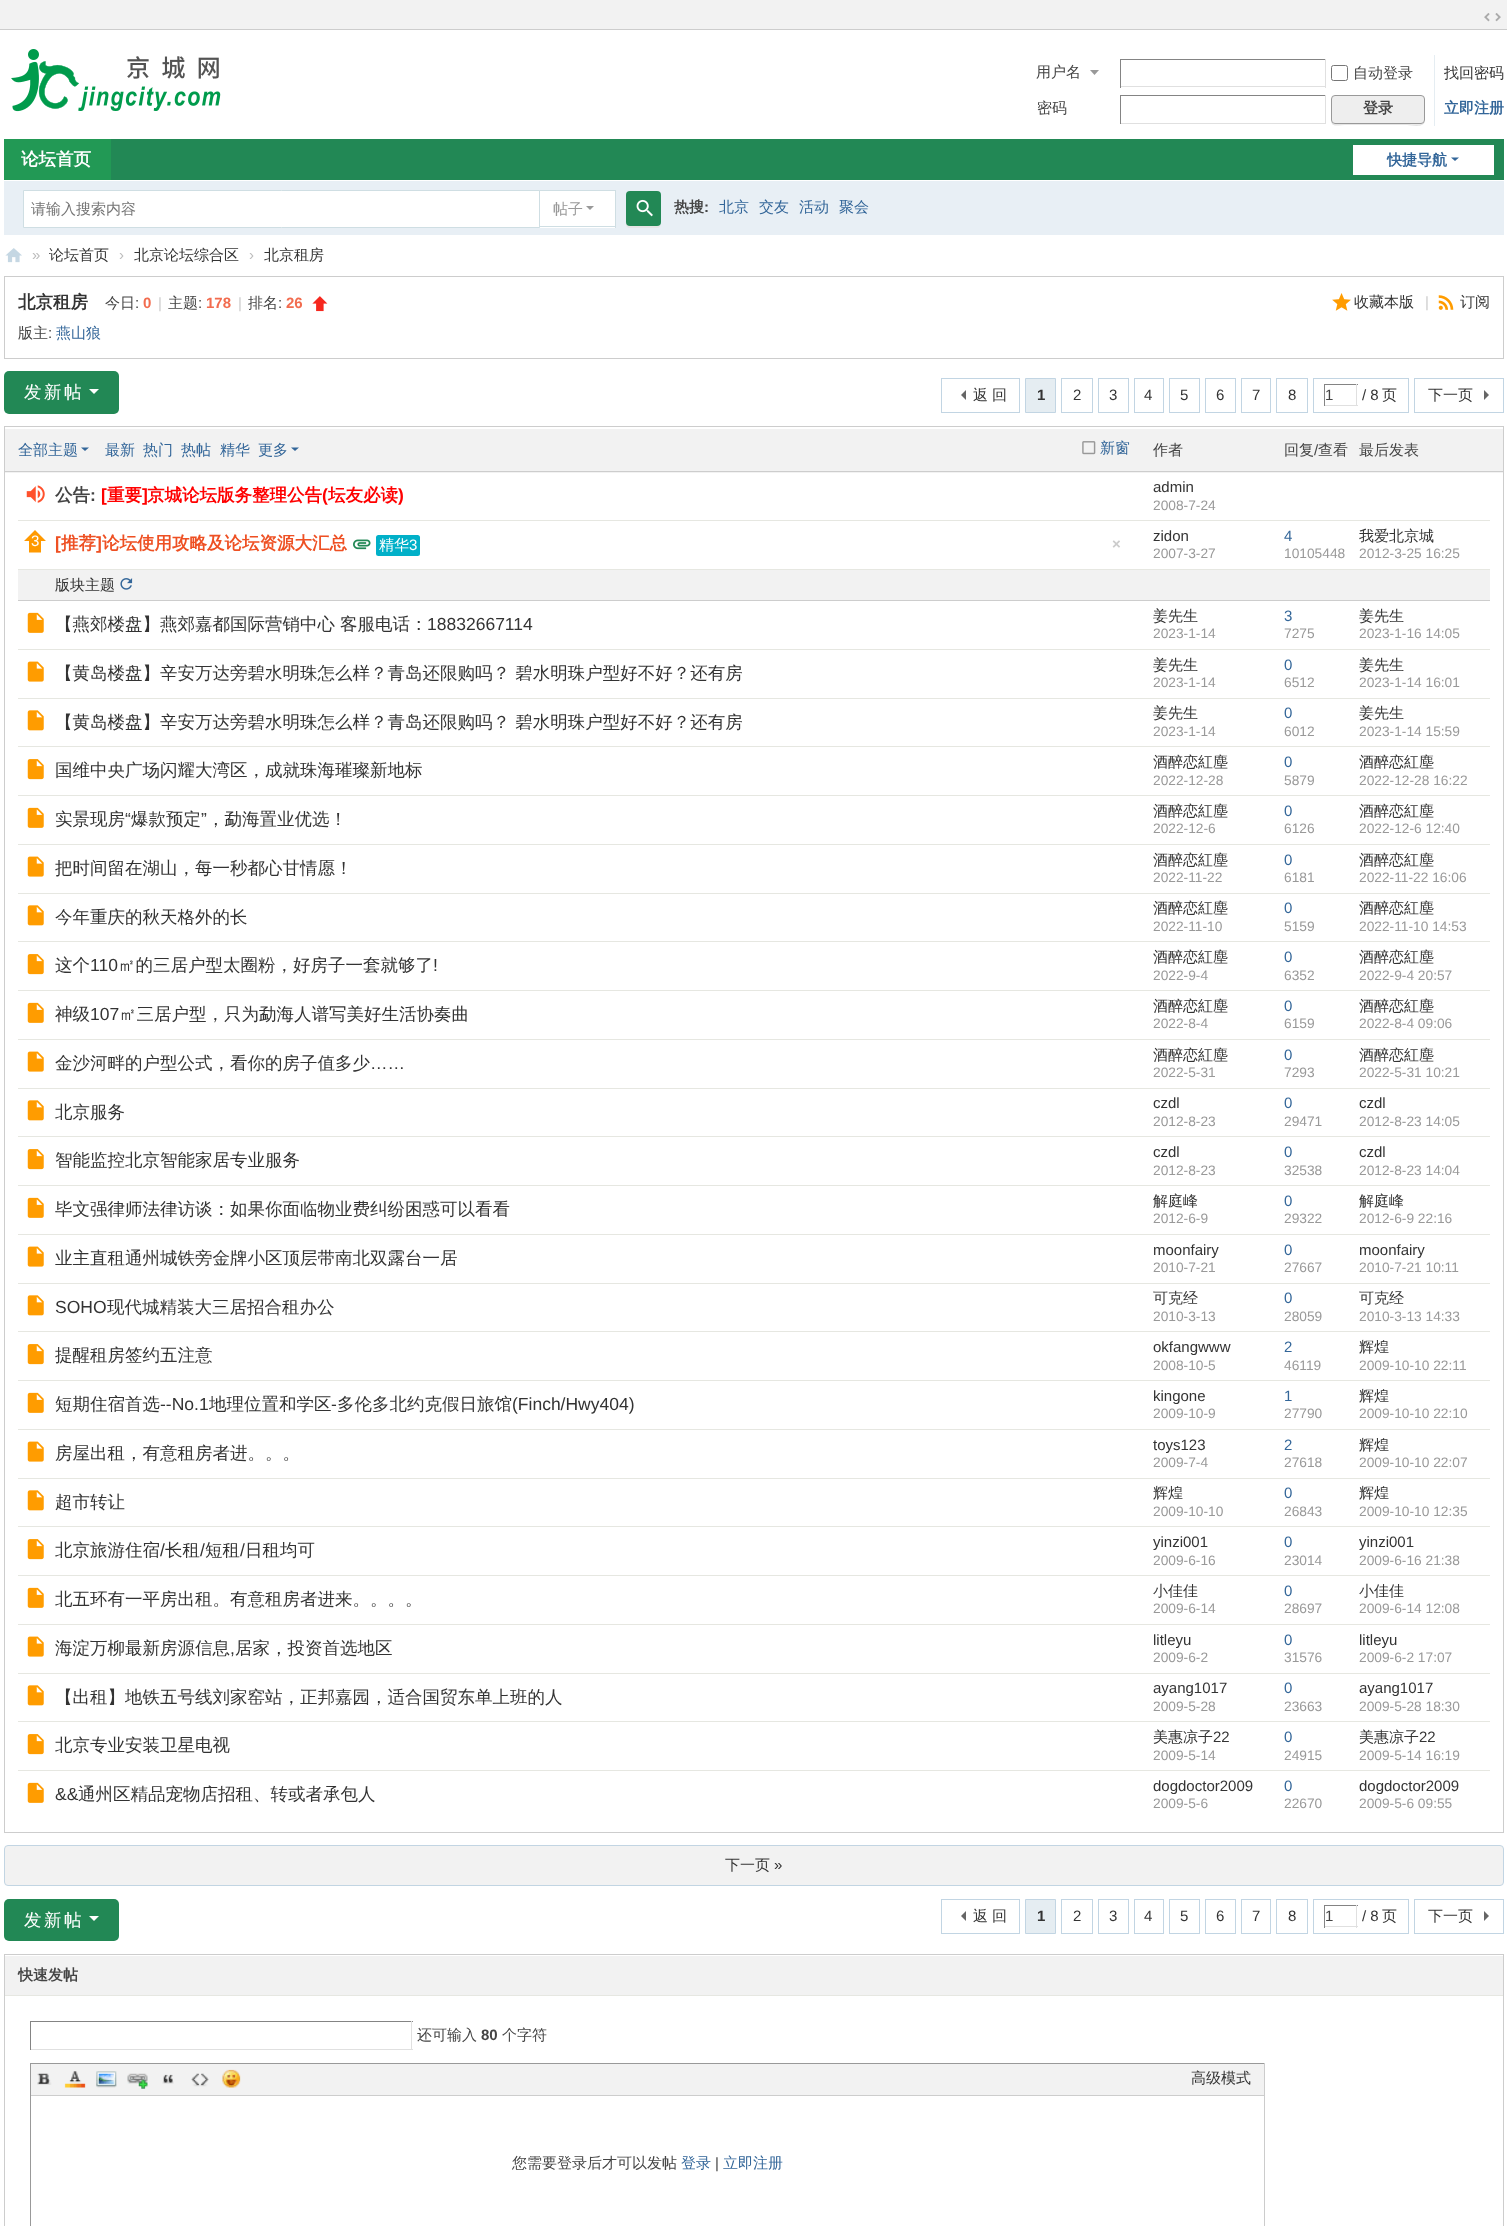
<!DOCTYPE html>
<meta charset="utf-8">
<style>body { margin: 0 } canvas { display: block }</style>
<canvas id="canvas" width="1507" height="2226"></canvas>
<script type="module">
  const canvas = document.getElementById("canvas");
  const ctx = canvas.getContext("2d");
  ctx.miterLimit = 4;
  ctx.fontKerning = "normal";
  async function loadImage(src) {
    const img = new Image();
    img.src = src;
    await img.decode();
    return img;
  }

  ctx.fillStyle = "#ffffff";
  ctx.fillRect(0, 0, 1507, 2226);
  ctx.fillStyle = "#f2f2f2";
  ctx.fillRect(0, 0, 1507, 29);
  ctx.fillStyle = "#cdcdcd";
  ctx.fillRect(0, 29, 1507, 1);
  ctx.drawImage(await loadImage("img1.png"), 1484, 13, 17, 9);
  ctx.drawImage(await loadImage("img2.png"), 11, 49, 210, 63);
  ctx.fillStyle = "#999999";
  ctx.beginPath();
  ctx.moveTo(1099, 70);
  ctx.lineTo(1090, 70);
  ctx.lineTo(1094.5, 75);
  ctx.closePath();
  ctx.fill();
  ctx.font = "500 15px WenQuanYi Zen Hei";
  ctx.fillStyle = "#444444";
  ctx.fillText("用户名", 1036, 77);
  ctx.fillStyle = "#848484";
  ctx.fillRect(1120, 59, 206, 1);
  ctx.fillStyle = "#e0e0e0";
  ctx.fillRect(1325, 59, 1, 29);
  ctx.fillRect(1120, 86, 206, 1);
  ctx.fillStyle = "#848484";
  ctx.fillRect(1120, 59, 1, 29);
  ctx.beginPath();
  ctx.roundRect(1331.5, 65.5, 16, 15, 2);
  ctx.strokeStyle = "#767676";
  ctx.stroke();
  ctx.fillStyle = "#444444";
  ctx.fillText("自动登录", 1353, 78);
  ctx.fillStyle = "#333333";
  ctx.fillText("找回密码", 1444, 78);
  ctx.fillStyle = "#444444";
  ctx.fillText("密码", 1037, 113);
  ctx.fillStyle = "#848484";
  ctx.fillRect(1120, 95, 206, 1);
  ctx.fillStyle = "#e0e0e0";
  ctx.fillRect(1325, 95, 1, 29);
  ctx.fillRect(1120, 123, 206, 1);
  ctx.fillStyle = "#848484";
  ctx.fillRect(1120, 95, 1, 29);
  ctx.fillStyle = "#e5edf2";
  ctx.fillRect(1434, 55, 1, 71);
  ctx.fillStyle = "#e5e5e5";
  ctx.beginPath();
  ctx.moveTo(1331, 99);
  ctx.lineTo(1331, 114);
  ctx.bezierCurveTo(1331, 129, 1332, 125, 1349, 125);
  ctx.lineTo(1407, 125);
  ctx.bezierCurveTo(1411, 125, 1425, 129, 1425, 120);
  ctx.bezierCurveTo(1425, 126, 1414, 124, 1407, 124);
  ctx.lineTo(1335, 124);
  ctx.bezierCurveTo(1331, 124, 1331, 119, 1331, 116);
  ctx.closePath();
  ctx.fill();
  ctx.fillStyle = "#eeeeee";
  ctx.beginPath();
  ctx.roundRect(1331.5, 95.5, 93, 28, 3.5);
  ctx.fill();
  ctx.strokeStyle = "#999999";
  ctx.stroke();
  ctx.font = "bold 15px WenQuanYi Zen Hei";
  ctx.fillStyle = "#444444";
  ctx.fillText("登录", 1363, 113);
  ctx.fillStyle = "#336699";
  ctx.fillText("立即注册", 1444, 113);
  ctx.fillStyle = "#228855";
  ctx.fillRect(111, 139, 1393, 41);
  ctx.fillStyle = "#229955";
  ctx.fillRect(4, 139, 107, 41);
  ctx.font = "bold 17.5px WenQuanYi Zen Hei";
  ctx.fillStyle = "#ffffff";
  ctx.fillText("论坛首页", 21, 165);
  ctx.fillRect(1353, 145, 141, 30);
  ctx.font = "bold 15px WenQuanYi Zen Hei";
  ctx.fillStyle = "#336699";
  ctx.fillText("快捷导航", 1387, 165);
  ctx.beginPath();
  ctx.moveTo(1451, 157.5);
  ctx.lineTo(1459, 157.5);
  ctx.lineTo(1455, 161);
  ctx.closePath();
  ctx.fill();
  ctx.fillStyle = "#e8eff5";
  ctx.fillRect(4, 181, 1500, 54);
  ctx.fillStyle = "#cfdee3";
  ctx.fillRect(538, 190, 78, 1);
  ctx.fillStyle = "#ffffff";
  ctx.fillRect(540, 191, 75, 37);
  ctx.fillStyle = "#cfdee3";
  ctx.fillRect(615, 190, 1, 38);
  ctx.fillRect(538, 226, 78, 1);
  ctx.fillStyle = "#ffffff";
  ctx.beginPath();
  ctx.rect(23.5, 190.5, 516, 37);
  ctx.fill();
  ctx.strokeStyle = "#cfdee3";
  ctx.stroke();
  ctx.font = "500 15px WenQuanYi Zen Hei";
  ctx.fillStyle = "#757575";
  ctx.fillText("请输入搜索内容", 31, 214);
  ctx.fillStyle = "#999999";
  ctx.fillText("帖子", 553, 214);
  ctx.beginPath();
  ctx.moveTo(586, 206);
  ctx.lineTo(594, 206);
  ctx.lineTo(590, 210);
  ctx.closePath();
  ctx.fill();
  ctx.fillStyle = "#e5e5e5";
  ctx.beginPath();
  ctx.moveTo(626, 195.5);
  ctx.lineTo(626, 219.5);
  ctx.bezierCurveTo(626, 222.5, 625, 227, 629, 228);
  ctx.lineTo(657, 228);
  ctx.bezierCurveTo(659.5, 228, 661, 226, 661, 224);
  ctx.bezierCurveTo(660.5, 225.5, 659, 226, 657.5, 226);
  ctx.lineTo(630, 226);
  ctx.bezierCurveTo(628, 226, 626, 224.5, 626, 222.5);
  ctx.closePath();
  ctx.fill();
  ctx.fillStyle = "#228855";
  ctx.beginPath();
  ctx.roundRect(626, 191, 35, 35, 4);
  ctx.fill();
  ctx.drawImage(await loadImage("img3.png"), 636, 199, 17, 18);
  ctx.font = "bold 15px WenQuanYi Zen Hei";
  ctx.fillStyle = "#444444";
  ctx.fillText("热搜", 674, 212);
  ctx.font = "bold 15px Liberation Sans";
  ctx.fillText(":", 704, 212);
  ctx.font = "500 15px WenQuanYi Zen Hei";
  ctx.fillStyle = "#336699";
  ctx.fillText("北京", 719, 212);
  ctx.fillText("交友", 759, 212);
  ctx.fillText("活动", 799, 212);
  ctx.fillText("聚会", 839, 212);
  ctx.drawImage(await loadImage("img4.png"), 5, 248, 17, 15);
  ctx.font = "15px Liberation Sans";
  ctx.fillStyle = "#bdbdbd";
  ctx.fillText("»", 32, 260);
  ctx.font = "500 15px WenQuanYi Zen Hei";
  ctx.fillStyle = "#333333";
  ctx.fillText("论坛首页", 49, 260);
  ctx.font = "15px Liberation Sans";
  ctx.fillStyle = "#bdbdbd";
  ctx.fillText("›", 119, 260);
  ctx.font = "500 15px WenQuanYi Zen Hei";
  ctx.fillStyle = "#333333";
  ctx.fillText("北京论坛综合区", 134, 260);
  ctx.font = "15px Liberation Sans";
  ctx.fillStyle = "#bdbdbd";
  ctx.fillText("›", 249, 260);
  ctx.font = "500 15px WenQuanYi Zen Hei";
  ctx.fillStyle = "#333333";
  ctx.fillText("北京租房", 264, 260);
  ctx.strokeStyle = "#cdcdcd";
  ctx.strokeRect(4.5, 276.5, 1499, 82);
  ctx.font = "bold 17.5px WenQuanYi Zen Hei";
  ctx.fillText("北京租房", 18, 308);
  ctx.font = "500 15px WenQuanYi Zen Hei";
  ctx.fillStyle = "#444444";
  ctx.fillText("今日", 105, 308);
  ctx.font = "15px Liberation Sans";
  ctx.fillText(":", 135, 308);
  ctx.font = "bold 15px Liberation Sans";
  ctx.fillStyle = "#f26c4f";
  ctx.fillText("0", 143, 308);
  ctx.font = "15px Liberation Sans";
  ctx.fillStyle = "#cccccc";
  ctx.fillText("|", 158, 308);
  ctx.font = "500 15px WenQuanYi Zen Hei";
  ctx.fillStyle = "#444444";
  ctx.fillText("主题", 168, 308);
  ctx.font = "15px Liberation Sans";
  ctx.fillText(":", 198, 308);
  ctx.font = "bold 15px Liberation Sans";
  ctx.fillStyle = "#f26c4f";
  ctx.fillText("178", 206, 308);
  ctx.font = "15px Liberation Sans";
  ctx.fillStyle = "#cccccc";
  ctx.fillText("|", 238, 308);
  ctx.font = "500 15px WenQuanYi Zen Hei";
  ctx.fillStyle = "#444444";
  ctx.fillText("排名", 248, 308);
  ctx.font = "15px Liberation Sans";
  ctx.fillText(":", 278, 308);
  ctx.font = "bold 15px Liberation Sans";
  ctx.fillStyle = "#f26c4f";
  ctx.fillText("26", 286, 308);
  ctx.drawImage(await loadImage("img5.png"), 312, 296, 16, 16);
  ctx.drawImage(await loadImage("img6.png"), 1332, 293, 19, 18);
  ctx.font = "500 15px WenQuanYi Zen Hei";
  ctx.fillStyle = "#333333";
  ctx.fillText("收藏本版", 1354, 307);
  ctx.font = "15px Liberation Sans";
  ctx.fillStyle = "#cccccc";
  ctx.fillText("|", 1425, 307);
  ctx.drawImage(await loadImage("img7.png"), 1438, 295, 16, 15);
  ctx.font = "500 15px WenQuanYi Zen Hei";
  ctx.fillStyle = "#333333";
  ctx.fillText("订阅", 1460, 307);
  ctx.fillStyle = "#444444";
  ctx.fillText("版主", 18, 338);
  ctx.font = "15px Liberation Sans";
  ctx.fillText(":", 48, 338);
  ctx.font = "500 15px WenQuanYi Zen Hei";
  ctx.fillStyle = "#336699";
  ctx.fillText("燕山狼", 56, 338);
  ctx.fillStyle = "#228855";
  ctx.beginPath();
  ctx.roundRect(4, 371, 115, 43, 5);
  ctx.fill();
  ctx.letterSpacing = "2.5px";
  ctx.font = "500 17.5px WenQuanYi Zen Hei";
  ctx.fillStyle = "#ffffff";
  ctx.fillText("发新帖", 24, 398);
  ctx.beginPath();
  ctx.moveTo(89, 389);
  ctx.lineTo(99, 389);
  ctx.lineTo(94, 394);
  ctx.closePath();
  ctx.fill();
  ctx.strokeStyle = "#c2d5e3";
  ctx.strokeRect(941.5, 378.5, 78, 34);
  ctx.fillStyle = "#666666";
  ctx.beginPath();
  ctx.moveTo(966, 390);
  ctx.lineTo(966, 400);
  ctx.lineTo(961, 395);
  ctx.closePath();
  ctx.fill();
  ctx.letterSpacing = "0px";
  ctx.font = "500 15px WenQuanYi Zen Hei";
  ctx.fillStyle = "#333333";
  ctx.fillText("返", 973, 400);
  ctx.fillText("回", 992, 400);
  ctx.fillStyle = "#e5edf2";
  ctx.beginPath();
  ctx.rect(1025.5, 378.5, 30, 34);
  ctx.fill();
  ctx.stroke();
  ctx.font = "bold 15px Liberation Sans";
  ctx.fillStyle = "#333333";
  ctx.fillText("1", 1037, 400);
  ctx.strokeRect(1061.5, 378.5, 31, 34);
  ctx.font = "15px Liberation Sans";
  ctx.fillText("2", 1073, 400);
  ctx.strokeRect(1098.5, 378.5, 30, 34);
  ctx.fillText("3", 1109, 400);
  ctx.strokeRect(1134.5, 378.5, 29, 34);
  ctx.fillText("4", 1144, 400);
  ctx.strokeRect(1169.5, 378.5, 30, 34);
  ctx.fillText("5", 1180, 400);
  ctx.strokeRect(1205.5, 378.5, 30, 34);
  ctx.fillText("6", 1216, 400);
  ctx.strokeRect(1241.5, 378.5, 29, 34);
  ctx.fillText("7", 1252, 400);
  ctx.strokeRect(1276.5, 378.5, 31, 34);
  ctx.fillText("8", 1288, 400);
  ctx.strokeRect(1313.5, 378.5, 95, 34);
  ctx.fillStyle = "#848484";
  ctx.fillRect(1324, 384, 34, 1);
  ctx.fillStyle = "#e0e0e0";
  ctx.fillRect(1356, 384, 1, 22);
  ctx.fillRect(1324, 405, 34, 1);
  ctx.fillStyle = "#848484";
  ctx.fillRect(1324, 384, 1, 22);
  ctx.fillStyle = "#444444";
  ctx.fillText("1", 1325, 400);
  ctx.fillStyle = "#333333";
  ctx.fillText("/ 8", 1362, 400);
  ctx.font = "500 15px WenQuanYi Zen Hei";
  ctx.fillText("页", 1382, 400);
  ctx.strokeRect(1414.5, 378.5, 89, 34);
  ctx.fillText("下一页", 1428, 400);
  ctx.fillStyle = "#666666";
  ctx.beginPath();
  ctx.moveTo(1484, 400);
  ctx.lineTo(1484, 390);
  ctx.lineTo(1489, 395);
  ctx.closePath();
  ctx.fill();
  ctx.strokeStyle = "#cdcdcd";
  ctx.strokeRect(4.5, 426.5, 1499, 1406);
  ctx.fillStyle = "#f2f2f2";
  ctx.fillRect(5, 429, 1498, 44);
  ctx.fillStyle = "#cdcdcd";
  ctx.fillRect(5, 471, 1498, 1);
  ctx.fillStyle = "#336699";
  ctx.fillText("全部主题", 18, 455);
  ctx.beginPath();
  ctx.moveTo(81, 447.5);
  ctx.lineTo(89, 447.5);
  ctx.lineTo(85, 451);
  ctx.closePath();
  ctx.fill();
  ctx.fillText("最新", 105, 455);
  ctx.fillText("热门", 143, 455);
  ctx.fillText("热帖", 181, 455);
  ctx.fillText("精华", 220, 455);
  ctx.fillText("更多", 258, 455);
  ctx.beginPath();
  ctx.moveTo(291, 447.5);
  ctx.lineTo(299, 447.5);
  ctx.lineTo(295, 451);
  ctx.closePath();
  ctx.fill();
  ctx.drawImage(await loadImage("img8.png"), 1082, 441, 14, 14);
  ctx.fillText("新窗", 1100, 453);
  ctx.fillStyle = "#444444";
  ctx.fillText("作者", 1153, 455);
  ctx.fillText("回复", 1284, 455);
  ctx.font = "15px Liberation Sans";
  ctx.fillText("/", 1314, 455);
  ctx.font = "500 15px WenQuanYi Zen Hei";
  ctx.fillText("查看", 1318, 455);
  ctx.fillText("最后发表", 1359, 455);
  ctx.font = "15px Liberation Sans";
  ctx.fillStyle = "#333333";
  ctx.fillText("admin", 1153, 492);
  ctx.font = "13.75px Liberation Sans";
  ctx.fillStyle = "#999999";
  ctx.fillText("2008-7-24", 1153, 510);
  ctx.fillStyle = "#e6e7e1";
  ctx.fillRect(18, 520, 1472, 1);
  ctx.drawImage(await loadImage("img9.png"), 26, 485, 19, 18);
  ctx.font = "bold 17.5px WenQuanYi Zen Hei";
  ctx.fillStyle = "#444444";
  ctx.fillText("公告", 55, 501);
  ctx.font = "bold 17.5px Liberation Sans";
  ctx.fillText(":", 90, 501);
  ctx.fillStyle = "#ff0000";
  ctx.fillText("[", 101, 501);
  ctx.font = "bold 17.5px WenQuanYi Zen Hei";
  ctx.fillText("重要", 107, 501);
  ctx.font = "bold 17.5px Liberation Sans";
  ctx.fillText("]", 142, 501);
  ctx.font = "bold 17.5px WenQuanYi Zen Hei";
  ctx.fillText("京城论坛版务整理公告", 147, 501);
  ctx.font = "bold 17.5px Liberation Sans";
  ctx.fillText("(", 322, 501);
  ctx.font = "bold 17.5px WenQuanYi Zen Hei";
  ctx.fillText("坛友必读", 328, 501);
  ctx.font = "bold 17.5px Liberation Sans";
  ctx.fillText(")", 398, 501);
  ctx.fillStyle = "#e6e7e1";
  ctx.fillRect(18, 569, 1472, 1);
  ctx.fillStyle = "#ff9900";
  ctx.beginPath();
  ctx.moveTo(35, 530);
  ctx.lineTo(46, 541);
  ctx.lineTo(41, 541);
  ctx.lineTo(41, 552.5);
  ctx.lineTo(29, 552.5);
  ctx.lineTo(29, 541);
  ctx.lineTo(24, 541);
  ctx.closePath();
  ctx.fill();
  ctx.font = "15px Liberation Sans";
  ctx.fillStyle = "#ffffff";
  ctx.fillText("3", 31, 546);
  ctx.font = "bold 17.5px Liberation Sans";
  ctx.fillStyle = "#ee5023";
  ctx.fillText("[", 55, 549);
  ctx.font = "bold 17.5px WenQuanYi Zen Hei";
  ctx.fillText("推荐", 61, 549);
  ctx.font = "bold 17.5px Liberation Sans";
  ctx.fillText("]", 96, 549);
  ctx.font = "bold 17.5px WenQuanYi Zen Hei";
  ctx.fillText("论坛使用攻略及论坛资源大汇总", 102, 549);
  ctx.drawImage(await loadImage("img10.png"), 353, 539, 18, 11);
  ctx.fillStyle = "#01b0c8";
  ctx.beginPath();
  ctx.roundRect(376, 535, 44, 21, 2.5);
  ctx.fill();
  ctx.font = "500 15px WenQuanYi Zen Hei";
  ctx.fillStyle = "#ffffff";
  ctx.fillText("精华", 379, 550);
  ctx.font = "15px Liberation Sans";
  ctx.fillText("3", 409, 550);
  ctx.font = "bold 15px Liberation Sans";
  ctx.fillStyle = "#cccccc";
  ctx.fillText("×", 1112, 549);
  ctx.font = "15px Liberation Sans";
  ctx.fillStyle = "#333333";
  ctx.fillText("zidon", 1153, 541);
  ctx.font = "13.75px Liberation Sans";
  ctx.fillStyle = "#999999";
  ctx.fillText("2007-3-27", 1153, 558);
  ctx.font = "15px Liberation Sans";
  ctx.fillStyle = "#336699";
  ctx.fillText("4", 1284, 541);
  ctx.font = "13.75px Liberation Sans";
  ctx.fillStyle = "#999999";
  ctx.fillText("10105448", 1284, 558);
  ctx.font = "500 15px WenQuanYi Zen Hei";
  ctx.fillStyle = "#333333";
  ctx.fillText("我爱北京城", 1359, 541);
  ctx.font = "13.75px Liberation Sans";
  ctx.fillStyle = "#999999";
  ctx.fillText("2012-3-25 16:25", 1359, 558);
  ctx.fillStyle = "#f2f2f2";
  ctx.fillRect(18, 570, 1472, 30);
  ctx.fillStyle = "#cdcdcd";
  ctx.fillRect(18, 600, 1472, 1);
  ctx.font = "500 15px WenQuanYi Zen Hei";
  ctx.fillStyle = "#333333";
  ctx.fillText("版块主题", 55, 590);
  ctx.drawImage(await loadImage("img11.png"), 120, 578, 13, 12);
  ctx.fillText("姜先生", 1153, 621);
  ctx.font = "13.75px Liberation Sans";
  ctx.fillStyle = "#999999";
  ctx.fillText("2023-1-14", 1153, 638);
  ctx.font = "15px Liberation Sans";
  ctx.fillStyle = "#336699";
  ctx.fillText("3", 1284, 621);
  ctx.font = "13.75px Liberation Sans";
  ctx.fillStyle = "#999999";
  ctx.fillText("7275", 1284, 638);
  ctx.font = "500 15px WenQuanYi Zen Hei";
  ctx.fillStyle = "#333333";
  ctx.fillText("姜先生", 1359, 621);
  ctx.font = "13.75px Liberation Sans";
  ctx.fillStyle = "#999999";
  ctx.fillText("2023-1-16 14:05", 1359, 638);
  ctx.fillStyle = "#e6e7e1";
  ctx.fillRect(18, 649, 1472, 1);
  ctx.drawImage(await loadImage("img12.png"), 27, 612, 17, 21);
  ctx.font = "500 17.5px WenQuanYi Zen Hei";
  ctx.fillStyle = "#333333";
  ctx.fillText("【燕郊楼盘】燕郊嘉都国际营销中心", 55, 630);
  ctx.fillText("客服电话：", 340, 630);
  ctx.font = "17.5px Liberation Sans";
  ctx.fillText("18832667114", 427, 630);
  ctx.font = "500 15px WenQuanYi Zen Hei";
  ctx.fillText("姜先生", 1153, 670);
  ctx.font = "13.75px Liberation Sans";
  ctx.fillStyle = "#999999";
  ctx.fillText("2023-1-14", 1153, 687);
  ctx.font = "15px Liberation Sans";
  ctx.fillStyle = "#336699";
  ctx.fillText("0", 1284, 670);
  ctx.font = "13.75px Liberation Sans";
  ctx.fillStyle = "#999999";
  ctx.fillText("6512", 1284, 687);
  ctx.font = "500 15px WenQuanYi Zen Hei";
  ctx.fillStyle = "#333333";
  ctx.fillText("姜先生", 1359, 670);
  ctx.font = "13.75px Liberation Sans";
  ctx.fillStyle = "#999999";
  ctx.fillText("2023-1-14 16:01", 1359, 687);
  ctx.fillStyle = "#e6e7e1";
  ctx.fillRect(18, 698, 1472, 1);
  ctx.drawImage(await loadImage("img13.png"), 27, 661, 17, 21);
  ctx.font = "500 17.5px WenQuanYi Zen Hei";
  ctx.fillStyle = "#333333";
  ctx.fillText("【黄岛楼盘】辛安万达旁碧水明珠怎么样？青岛还限购吗？ 碧水明珠户型好不好？还有房", 55, 679);
  ctx.font = "500 15px WenQuanYi Zen Hei";
  ctx.fillText("姜先生", 1153, 718);
  ctx.font = "13.75px Liberation Sans";
  ctx.fillStyle = "#999999";
  ctx.fillText("2023-1-14", 1153, 736);
  ctx.font = "15px Liberation Sans";
  ctx.fillStyle = "#336699";
  ctx.fillText("0", 1284, 718);
  ctx.font = "13.75px Liberation Sans";
  ctx.fillStyle = "#999999";
  ctx.fillText("6012", 1284, 736);
  ctx.font = "500 15px WenQuanYi Zen Hei";
  ctx.fillStyle = "#333333";
  ctx.fillText("姜先生", 1359, 718);
  ctx.font = "13.75px Liberation Sans";
  ctx.fillStyle = "#999999";
  ctx.fillText("2023-1-14 15:59", 1359, 736);
  ctx.fillStyle = "#e6e7e1";
  ctx.fillRect(18, 746, 1472, 1);
  ctx.drawImage(await loadImage("img14.png"), 27, 710, 17, 21);
  ctx.font = "500 17.5px WenQuanYi Zen Hei";
  ctx.fillStyle = "#333333";
  ctx.fillText("【黄岛楼盘】辛安万达旁碧水明珠怎么样？青岛还限购吗？ 碧水明珠户型好不好？还有房", 55, 728);
  ctx.font = "500 15px WenQuanYi Zen Hei";
  ctx.fillText("酒醉恋紅塵", 1153, 767);
  ctx.font = "13.75px Liberation Sans";
  ctx.fillStyle = "#999999";
  ctx.fillText("2022-12-28", 1153, 785);
  ctx.font = "15px Liberation Sans";
  ctx.fillStyle = "#336699";
  ctx.fillText("0", 1284, 767);
  ctx.font = "13.75px Liberation Sans";
  ctx.fillStyle = "#999999";
  ctx.fillText("5879", 1284, 785);
  ctx.font = "500 15px WenQuanYi Zen Hei";
  ctx.fillStyle = "#333333";
  ctx.fillText("酒醉恋紅塵", 1359, 767);
  ctx.font = "13.75px Liberation Sans";
  ctx.fillStyle = "#999999";
  ctx.fillText("2022-12-28 16:22", 1359, 785);
  ctx.fillStyle = "#e6e7e1";
  ctx.fillRect(18, 795, 1472, 1);
  ctx.drawImage(await loadImage("img15.png"), 27, 759, 17, 21);
  ctx.font = "500 17.5px WenQuanYi Zen Hei";
  ctx.fillStyle = "#333333";
  ctx.fillText("国维中央广场闪耀大湾区，成就珠海璀璨新地标", 55, 776);
  ctx.font = "500 15px WenQuanYi Zen Hei";
  ctx.fillText("酒醉恋紅塵", 1153, 816);
  ctx.font = "13.75px Liberation Sans";
  ctx.fillStyle = "#999999";
  ctx.fillText("2022-12-6", 1153, 833);
  ctx.font = "15px Liberation Sans";
  ctx.fillStyle = "#336699";
  ctx.fillText("0", 1284, 816);
  ctx.font = "13.75px Liberation Sans";
  ctx.fillStyle = "#999999";
  ctx.fillText("6126", 1284, 833);
  ctx.font = "500 15px WenQuanYi Zen Hei";
  ctx.fillStyle = "#333333";
  ctx.fillText("酒醉恋紅塵", 1359, 816);
  ctx.font = "13.75px Liberation Sans";
  ctx.fillStyle = "#999999";
  ctx.fillText("2022-12-6 12:40", 1359, 833);
  ctx.fillStyle = "#e6e7e1";
  ctx.fillRect(18, 844, 1472, 1);
  ctx.drawImage(await loadImage("img12.png"), 27, 807, 17, 21);
  ctx.font = "500 17.5px WenQuanYi Zen Hei";
  ctx.fillStyle = "#333333";
  ctx.fillText("实景现房", 55, 825);
  ctx.font = "17.5px Liberation Sans";
  ctx.fillText("“", 125, 825);
  ctx.font = "500 17.5px WenQuanYi Zen Hei";
  ctx.fillText("爆款预定", 131, 825);
  ctx.font = "17.5px Liberation Sans";
  ctx.fillText("”", 201, 825);
  ctx.font = "500 17.5px WenQuanYi Zen Hei";
  ctx.fillText("，勐海置业优选！", 207, 825);
  ctx.font = "500 15px WenQuanYi Zen Hei";
  ctx.fillText("酒醉恋紅塵", 1153, 865);
  ctx.font = "13.75px Liberation Sans";
  ctx.fillStyle = "#999999";
  ctx.fillText("2022-11-22", 1153, 882);
  ctx.font = "15px Liberation Sans";
  ctx.fillStyle = "#336699";
  ctx.fillText("0", 1284, 865);
  ctx.font = "13.75px Liberation Sans";
  ctx.fillStyle = "#999999";
  ctx.fillText("6181", 1284, 882);
  ctx.font = "500 15px WenQuanYi Zen Hei";
  ctx.fillStyle = "#333333";
  ctx.fillText("酒醉恋紅塵", 1359, 865);
  ctx.font = "13.75px Liberation Sans";
  ctx.fillStyle = "#999999";
  ctx.fillText("2022-11-22 16:06", 1359, 882);
  ctx.fillStyle = "#e6e7e1";
  ctx.fillRect(18, 893, 1472, 1);
  ctx.drawImage(await loadImage("img13.png"), 27, 856, 17, 21);
  ctx.font = "500 17.5px WenQuanYi Zen Hei";
  ctx.fillStyle = "#333333";
  ctx.fillText("把时间留在湖山，每一秒都心甘情愿！", 55, 874);
  ctx.font = "500 15px WenQuanYi Zen Hei";
  ctx.fillText("酒醉恋紅塵", 1153, 913);
  ctx.font = "13.75px Liberation Sans";
  ctx.fillStyle = "#999999";
  ctx.fillText("2022-11-10", 1153, 931);
  ctx.font = "15px Liberation Sans";
  ctx.fillStyle = "#336699";
  ctx.fillText("0", 1284, 913);
  ctx.font = "13.75px Liberation Sans";
  ctx.fillStyle = "#999999";
  ctx.fillText("5159", 1284, 931);
  ctx.font = "500 15px WenQuanYi Zen Hei";
  ctx.fillStyle = "#333333";
  ctx.fillText("酒醉恋紅塵", 1359, 913);
  ctx.font = "13.75px Liberation Sans";
  ctx.fillStyle = "#999999";
  ctx.fillText("2022-11-10 14:53", 1359, 931);
  ctx.fillStyle = "#e6e7e1";
  ctx.fillRect(18, 941, 1472, 1);
  ctx.drawImage(await loadImage("img14.png"), 27, 905, 17, 21);
  ctx.font = "500 17.5px WenQuanYi Zen Hei";
  ctx.fillStyle = "#333333";
  ctx.fillText("今年重庆的秋天格外的长", 55, 923);
  ctx.font = "500 15px WenQuanYi Zen Hei";
  ctx.fillText("酒醉恋紅塵", 1153, 962);
  ctx.font = "13.75px Liberation Sans";
  ctx.fillStyle = "#999999";
  ctx.fillText("2022-9-4", 1153, 980);
  ctx.font = "15px Liberation Sans";
  ctx.fillStyle = "#336699";
  ctx.fillText("0", 1284, 962);
  ctx.font = "13.75px Liberation Sans";
  ctx.fillStyle = "#999999";
  ctx.fillText("6352", 1284, 980);
  ctx.font = "500 15px WenQuanYi Zen Hei";
  ctx.fillStyle = "#333333";
  ctx.fillText("酒醉恋紅塵", 1359, 962);
  ctx.font = "13.75px Liberation Sans";
  ctx.fillStyle = "#999999";
  ctx.fillText("2022-9-4 20:57", 1359, 980);
  ctx.fillStyle = "#e6e7e1";
  ctx.fillRect(18, 990, 1472, 1);
  ctx.drawImage(await loadImage("img15.png"), 27, 954, 17, 21);
  ctx.font = "500 17.5px WenQuanYi Zen Hei";
  ctx.fillStyle = "#333333";
  ctx.fillText("这个", 55, 971);
  ctx.font = "17.5px Liberation Sans";
  ctx.fillText("110", 90, 971);
  ctx.font = "500 17.5px WenQuanYi Zen Hei";
  ctx.fillText("㎡的三居户型太圈粉，好房子一套就够了", 118, 971);
  ctx.font = "17.5px Liberation Sans";
  ctx.fillText("!", 433, 971);
  ctx.font = "500 15px WenQuanYi Zen Hei";
  ctx.fillText("酒醉恋紅塵", 1153, 1011);
  ctx.font = "13.75px Liberation Sans";
  ctx.fillStyle = "#999999";
  ctx.fillText("2022-8-4", 1153, 1028);
  ctx.font = "15px Liberation Sans";
  ctx.fillStyle = "#336699";
  ctx.fillText("0", 1284, 1011);
  ctx.font = "13.75px Liberation Sans";
  ctx.fillStyle = "#999999";
  ctx.fillText("6159", 1284, 1028);
  ctx.font = "500 15px WenQuanYi Zen Hei";
  ctx.fillStyle = "#333333";
  ctx.fillText("酒醉恋紅塵", 1359, 1011);
  ctx.font = "13.75px Liberation Sans";
  ctx.fillStyle = "#999999";
  ctx.fillText("2022-8-4 09:06", 1359, 1028);
  ctx.fillStyle = "#e6e7e1";
  ctx.fillRect(18, 1039, 1472, 1);
  ctx.drawImage(await loadImage("img12.png"), 27, 1002, 17, 21);
  ctx.font = "500 17.5px WenQuanYi Zen Hei";
  ctx.fillStyle = "#333333";
  ctx.fillText("神级", 55, 1020);
  ctx.font = "17.5px Liberation Sans";
  ctx.fillText("107", 90, 1020);
  ctx.font = "500 17.5px WenQuanYi Zen Hei";
  ctx.fillText("㎡三居户型，只为勐海人谱写美好生活协奏曲", 119, 1020);
  ctx.font = "500 15px WenQuanYi Zen Hei";
  ctx.fillText("酒醉恋紅塵", 1153, 1060);
  ctx.font = "13.75px Liberation Sans";
  ctx.fillStyle = "#999999";
  ctx.fillText("2022-5-31", 1153, 1077);
  ctx.font = "15px Liberation Sans";
  ctx.fillStyle = "#336699";
  ctx.fillText("0", 1284, 1060);
  ctx.font = "13.75px Liberation Sans";
  ctx.fillStyle = "#999999";
  ctx.fillText("7293", 1284, 1077);
  ctx.font = "500 15px WenQuanYi Zen Hei";
  ctx.fillStyle = "#333333";
  ctx.fillText("酒醉恋紅塵", 1359, 1060);
  ctx.font = "13.75px Liberation Sans";
  ctx.fillStyle = "#999999";
  ctx.fillText("2022-5-31 10:21", 1359, 1077);
  ctx.fillStyle = "#e6e7e1";
  ctx.fillRect(18, 1088, 1472, 1);
  ctx.drawImage(await loadImage("img13.png"), 27, 1051, 17, 21);
  ctx.font = "500 17.5px WenQuanYi Zen Hei";
  ctx.fillStyle = "#333333";
  ctx.fillText("金沙河畔的户型公式，看你的房子值多少", 55, 1069);
  ctx.font = "17.5px Liberation Sans";
  ctx.fillText("……", 370, 1069);
  ctx.font = "15px Liberation Sans";
  ctx.fillText("czdl", 1153, 1108);
  ctx.font = "13.75px Liberation Sans";
  ctx.fillStyle = "#999999";
  ctx.fillText("2012-8-23", 1153, 1126);
  ctx.font = "15px Liberation Sans";
  ctx.fillStyle = "#336699";
  ctx.fillText("0", 1284, 1108);
  ctx.font = "13.75px Liberation Sans";
  ctx.fillStyle = "#999999";
  ctx.fillText("29471", 1284, 1126);
  ctx.font = "15px Liberation Sans";
  ctx.fillStyle = "#333333";
  ctx.fillText("czdl", 1359, 1108);
  ctx.font = "13.75px Liberation Sans";
  ctx.fillStyle = "#999999";
  ctx.fillText("2012-8-23 14:05", 1359, 1126);
  ctx.fillStyle = "#e6e7e1";
  ctx.fillRect(18, 1136, 1472, 1);
  ctx.drawImage(await loadImage("img14.png"), 27, 1100, 17, 21);
  ctx.font = "500 17.5px WenQuanYi Zen Hei";
  ctx.fillStyle = "#333333";
  ctx.fillText("北京服务", 55, 1118);
  ctx.font = "15px Liberation Sans";
  ctx.fillText("czdl", 1153, 1157);
  ctx.font = "13.75px Liberation Sans";
  ctx.fillStyle = "#999999";
  ctx.fillText("2012-8-23", 1153, 1175);
  ctx.font = "15px Liberation Sans";
  ctx.fillStyle = "#336699";
  ctx.fillText("0", 1284, 1157);
  ctx.font = "13.75px Liberation Sans";
  ctx.fillStyle = "#999999";
  ctx.fillText("32538", 1284, 1175);
  ctx.font = "15px Liberation Sans";
  ctx.fillStyle = "#333333";
  ctx.fillText("czdl", 1359, 1157);
  ctx.font = "13.75px Liberation Sans";
  ctx.fillStyle = "#999999";
  ctx.fillText("2012-8-23 14:04", 1359, 1175);
  ctx.fillStyle = "#e6e7e1";
  ctx.fillRect(18, 1185, 1472, 1);
  ctx.drawImage(await loadImage("img15.png"), 27, 1149, 17, 21);
  ctx.font = "500 17.5px WenQuanYi Zen Hei";
  ctx.fillStyle = "#333333";
  ctx.fillText("智能监控北京智能家居专业服务", 55, 1166);
  ctx.font = "500 15px WenQuanYi Zen Hei";
  ctx.fillText("解庭峰", 1153, 1206);
  ctx.font = "13.75px Liberation Sans";
  ctx.fillStyle = "#999999";
  ctx.fillText("2012-6-9", 1153, 1223);
  ctx.font = "15px Liberation Sans";
  ctx.fillStyle = "#336699";
  ctx.fillText("0", 1284, 1206);
  ctx.font = "13.75px Liberation Sans";
  ctx.fillStyle = "#999999";
  ctx.fillText("29322", 1284, 1223);
  ctx.font = "500 15px WenQuanYi Zen Hei";
  ctx.fillStyle = "#333333";
  ctx.fillText("解庭峰", 1359, 1206);
  ctx.font = "13.75px Liberation Sans";
  ctx.fillStyle = "#999999";
  ctx.fillText("2012-6-9 22:16", 1359, 1223);
  ctx.fillStyle = "#e6e7e1";
  ctx.fillRect(18, 1234, 1472, 1);
  ctx.drawImage(await loadImage("img12.png"), 27, 1197, 17, 21);
  ctx.font = "500 17.5px WenQuanYi Zen Hei";
  ctx.fillStyle = "#333333";
  ctx.fillText("毕文强律师法律访谈：如果你面临物业费纠纷困惑可以看看", 55, 1215);
  ctx.font = "15px Liberation Sans";
  ctx.fillText("moonfairy", 1153, 1255);
  ctx.font = "13.75px Liberation Sans";
  ctx.fillStyle = "#999999";
  ctx.fillText("2010-7-21", 1153, 1272);
  ctx.font = "15px Liberation Sans";
  ctx.fillStyle = "#336699";
  ctx.fillText("0", 1284, 1255);
  ctx.font = "13.75px Liberation Sans";
  ctx.fillStyle = "#999999";
  ctx.fillText("27667", 1284, 1272);
  ctx.font = "15px Liberation Sans";
  ctx.fillStyle = "#333333";
  ctx.fillText("moonfairy", 1359, 1255);
  ctx.font = "13.75px Liberation Sans";
  ctx.fillStyle = "#999999";
  ctx.fillText("2010-7-21 10:11", 1359, 1272);
  ctx.fillStyle = "#e6e7e1";
  ctx.fillRect(18, 1283, 1472, 1);
  ctx.drawImage(await loadImage("img13.png"), 27, 1246, 17, 21);
  ctx.font = "500 17.5px WenQuanYi Zen Hei";
  ctx.fillStyle = "#333333";
  ctx.fillText("业主直租通州城铁旁金牌小区顶层带南北双露台一居", 55, 1264);
  ctx.font = "500 15px WenQuanYi Zen Hei";
  ctx.fillText("可克经", 1153, 1303);
  ctx.font = "13.75px Liberation Sans";
  ctx.fillStyle = "#999999";
  ctx.fillText("2010-3-13", 1153, 1321);
  ctx.font = "15px Liberation Sans";
  ctx.fillStyle = "#336699";
  ctx.fillText("0", 1284, 1303);
  ctx.font = "13.75px Liberation Sans";
  ctx.fillStyle = "#999999";
  ctx.fillText("28059", 1284, 1321);
  ctx.font = "500 15px WenQuanYi Zen Hei";
  ctx.fillStyle = "#333333";
  ctx.fillText("可克经", 1359, 1303);
  ctx.font = "13.75px Liberation Sans";
  ctx.fillStyle = "#999999";
  ctx.fillText("2010-3-13 14:33", 1359, 1321);
  ctx.fillStyle = "#e6e7e1";
  ctx.fillRect(18, 1331, 1472, 1);
  ctx.drawImage(await loadImage("img14.png"), 27, 1295, 17, 21);
  ctx.font = "17.5px Liberation Sans";
  ctx.fillStyle = "#333333";
  ctx.fillText("SOHO", 55, 1313);
  ctx.font = "500 17.5px WenQuanYi Zen Hei";
  ctx.fillText("现代城精装大三居招合租办公", 107, 1313);
  ctx.font = "15px Liberation Sans";
  ctx.fillText("okfangwww", 1153, 1352);
  ctx.font = "13.75px Liberation Sans";
  ctx.fillStyle = "#999999";
  ctx.fillText("2008-10-5", 1153, 1370);
  ctx.font = "15px Liberation Sans";
  ctx.fillStyle = "#336699";
  ctx.fillText("2", 1284, 1352);
  ctx.font = "13.75px Liberation Sans";
  ctx.fillStyle = "#999999";
  ctx.fillText("46119", 1284, 1370);
  ctx.font = "500 15px WenQuanYi Zen Hei";
  ctx.fillStyle = "#333333";
  ctx.fillText("辉煌", 1359, 1352);
  ctx.font = "13.75px Liberation Sans";
  ctx.fillStyle = "#999999";
  ctx.fillText("2009-10-10 22:11", 1359, 1370);
  ctx.fillStyle = "#e6e7e1";
  ctx.fillRect(18, 1380, 1472, 1);
  ctx.drawImage(await loadImage("img15.png"), 27, 1344, 17, 21);
  ctx.font = "500 17.5px WenQuanYi Zen Hei";
  ctx.fillStyle = "#333333";
  ctx.fillText("提醒租房签约五注意", 55, 1361);
  ctx.font = "15px Liberation Sans";
  ctx.fillText("kingone", 1153, 1401);
  ctx.font = "13.75px Liberation Sans";
  ctx.fillStyle = "#999999";
  ctx.fillText("2009-10-9", 1153, 1418);
  ctx.font = "15px Liberation Sans";
  ctx.fillStyle = "#336699";
  ctx.fillText("1", 1284, 1401);
  ctx.font = "13.75px Liberation Sans";
  ctx.fillStyle = "#999999";
  ctx.fillText("27790", 1284, 1418);
  ctx.font = "500 15px WenQuanYi Zen Hei";
  ctx.fillStyle = "#333333";
  ctx.fillText("辉煌", 1359, 1401);
  ctx.font = "13.75px Liberation Sans";
  ctx.fillStyle = "#999999";
  ctx.fillText("2009-10-10 22:10", 1359, 1418);
  ctx.fillStyle = "#e6e7e1";
  ctx.fillRect(18, 1429, 1472, 1);
  ctx.drawImage(await loadImage("img12.png"), 27, 1392, 17, 21);
  ctx.font = "500 17.5px WenQuanYi Zen Hei";
  ctx.fillStyle = "#333333";
  ctx.fillText("短期住宿首选", 55, 1410);
  ctx.font = "17.5px Liberation Sans";
  ctx.fillText("--No.1", 160, 1410);
  ctx.font = "500 17.5px WenQuanYi Zen Hei";
  ctx.fillText("地理位置和学区", 209, 1410);
  ctx.font = "17.5px Liberation Sans";
  ctx.fillText("-", 331, 1410);
  ctx.font = "500 17.5px WenQuanYi Zen Hei";
  ctx.fillText("多伦多北约克假日旅馆", 337, 1410);
  ctx.font = "17.5px Liberation Sans";
  ctx.fillText("(Finch/Hwy404)", 512, 1410);
  ctx.font = "15px Liberation Sans";
  ctx.fillText("toys123", 1153, 1450);
  ctx.font = "13.75px Liberation Sans";
  ctx.fillStyle = "#999999";
  ctx.fillText("2009-7-4", 1153, 1467);
  ctx.font = "15px Liberation Sans";
  ctx.fillStyle = "#336699";
  ctx.fillText("2", 1284, 1450);
  ctx.font = "13.75px Liberation Sans";
  ctx.fillStyle = "#999999";
  ctx.fillText("27618", 1284, 1467);
  ctx.font = "500 15px WenQuanYi Zen Hei";
  ctx.fillStyle = "#333333";
  ctx.fillText("辉煌", 1359, 1450);
  ctx.font = "13.75px Liberation Sans";
  ctx.fillStyle = "#999999";
  ctx.fillText("2009-10-10 22:07", 1359, 1467);
  ctx.fillStyle = "#e6e7e1";
  ctx.fillRect(18, 1478, 1472, 1);
  ctx.drawImage(await loadImage("img13.png"), 27, 1441, 17, 21);
  ctx.font = "500 17.5px WenQuanYi Zen Hei";
  ctx.fillStyle = "#333333";
  ctx.fillText("房屋出租，有意租房者进。。。", 55, 1459);
  ctx.font = "500 15px WenQuanYi Zen Hei";
  ctx.fillText("辉煌", 1153, 1498);
  ctx.font = "13.75px Liberation Sans";
  ctx.fillStyle = "#999999";
  ctx.fillText("2009-10-10", 1153, 1516);
  ctx.font = "15px Liberation Sans";
  ctx.fillStyle = "#336699";
  ctx.fillText("0", 1284, 1498);
  ctx.font = "13.75px Liberation Sans";
  ctx.fillStyle = "#999999";
  ctx.fillText("26843", 1284, 1516);
  ctx.font = "500 15px WenQuanYi Zen Hei";
  ctx.fillStyle = "#333333";
  ctx.fillText("辉煌", 1359, 1498);
  ctx.font = "13.75px Liberation Sans";
  ctx.fillStyle = "#999999";
  ctx.fillText("2009-10-10 12:35", 1359, 1516);
  ctx.fillStyle = "#e6e7e1";
  ctx.fillRect(18, 1526, 1472, 1);
  ctx.drawImage(await loadImage("img14.png"), 27, 1490, 17, 21);
  ctx.font = "500 17.5px WenQuanYi Zen Hei";
  ctx.fillStyle = "#333333";
  ctx.fillText("超市转让", 55, 1508);
  ctx.font = "15px Liberation Sans";
  ctx.fillText("yinzi001", 1153, 1547);
  ctx.font = "13.75px Liberation Sans";
  ctx.fillStyle = "#999999";
  ctx.fillText("2009-6-16", 1153, 1565);
  ctx.font = "15px Liberation Sans";
  ctx.fillStyle = "#336699";
  ctx.fillText("0", 1284, 1547);
  ctx.font = "13.75px Liberation Sans";
  ctx.fillStyle = "#999999";
  ctx.fillText("23014", 1284, 1565);
  ctx.font = "15px Liberation Sans";
  ctx.fillStyle = "#333333";
  ctx.fillText("yinzi001", 1359, 1547);
  ctx.font = "13.75px Liberation Sans";
  ctx.fillStyle = "#999999";
  ctx.fillText("2009-6-16 21:38", 1359, 1565);
  ctx.fillStyle = "#e6e7e1";
  ctx.fillRect(18, 1575, 1472, 1);
  ctx.drawImage(await loadImage("img15.png"), 27, 1539, 17, 21);
  ctx.font = "500 17.5px WenQuanYi Zen Hei";
  ctx.fillStyle = "#333333";
  ctx.fillText("北京旅游住宿", 55, 1556);
  ctx.font = "17.5px Liberation Sans";
  ctx.fillText("/", 160, 1556);
  ctx.font = "500 17.5px WenQuanYi Zen Hei";
  ctx.fillText("长租", 165, 1556);
  ctx.font = "17.5px Liberation Sans";
  ctx.fillText("/", 200, 1556);
  ctx.font = "500 17.5px WenQuanYi Zen Hei";
  ctx.fillText("短租", 205, 1556);
  ctx.font = "17.5px Liberation Sans";
  ctx.fillText("/", 240, 1556);
  ctx.font = "500 17.5px WenQuanYi Zen Hei";
  ctx.fillText("日租均可", 245, 1556);
  ctx.font = "500 15px WenQuanYi Zen Hei";
  ctx.fillText("小佳佳", 1153, 1596);
  ctx.font = "13.75px Liberation Sans";
  ctx.fillStyle = "#999999";
  ctx.fillText("2009-6-14", 1153, 1613);
  ctx.font = "15px Liberation Sans";
  ctx.fillStyle = "#336699";
  ctx.fillText("0", 1284, 1596);
  ctx.font = "13.75px Liberation Sans";
  ctx.fillStyle = "#999999";
  ctx.fillText("28697", 1284, 1613);
  ctx.font = "500 15px WenQuanYi Zen Hei";
  ctx.fillStyle = "#333333";
  ctx.fillText("小佳佳", 1359, 1596);
  ctx.font = "13.75px Liberation Sans";
  ctx.fillStyle = "#999999";
  ctx.fillText("2009-6-14 12:08", 1359, 1613);
  ctx.fillStyle = "#e6e7e1";
  ctx.fillRect(18, 1624, 1472, 1);
  ctx.drawImage(await loadImage("img12.png"), 27, 1587, 17, 21);
  ctx.font = "500 17.5px WenQuanYi Zen Hei";
  ctx.fillStyle = "#333333";
  ctx.fillText("北五环有一平房出租。有意租房者进来。。。。", 55, 1605);
  ctx.font = "15px Liberation Sans";
  ctx.fillText("litleyu", 1153, 1645);
  ctx.font = "13.75px Liberation Sans";
  ctx.fillStyle = "#999999";
  ctx.fillText("2009-6-2", 1153, 1662);
  ctx.font = "15px Liberation Sans";
  ctx.fillStyle = "#336699";
  ctx.fillText("0", 1284, 1645);
  ctx.font = "13.75px Liberation Sans";
  ctx.fillStyle = "#999999";
  ctx.fillText("31576", 1284, 1662);
  ctx.font = "15px Liberation Sans";
  ctx.fillStyle = "#333333";
  ctx.fillText("litleyu", 1359, 1645);
  ctx.font = "13.75px Liberation Sans";
  ctx.fillStyle = "#999999";
  ctx.fillText("2009-6-2 17:07", 1359, 1662);
  ctx.fillStyle = "#e6e7e1";
  ctx.fillRect(18, 1673, 1472, 1);
  ctx.drawImage(await loadImage("img13.png"), 27, 1636, 17, 21);
  ctx.font = "500 17.5px WenQuanYi Zen Hei";
  ctx.fillStyle = "#333333";
  ctx.fillText("海淀万柳最新房源信息", 55, 1654);
  ctx.font = "17.5px Liberation Sans";
  ctx.fillText(",", 230, 1654);
  ctx.font = "500 17.5px WenQuanYi Zen Hei";
  ctx.fillText("居家，投资首选地区", 235, 1654);
  ctx.font = "15px Liberation Sans";
  ctx.fillText("ayang1017", 1153, 1693);
  ctx.font = "13.75px Liberation Sans";
  ctx.fillStyle = "#999999";
  ctx.fillText("2009-5-28", 1153, 1711);
  ctx.font = "15px Liberation Sans";
  ctx.fillStyle = "#336699";
  ctx.fillText("0", 1284, 1693);
  ctx.font = "13.75px Liberation Sans";
  ctx.fillStyle = "#999999";
  ctx.fillText("23663", 1284, 1711);
  ctx.font = "15px Liberation Sans";
  ctx.fillStyle = "#333333";
  ctx.fillText("ayang1017", 1359, 1693);
  ctx.font = "13.75px Liberation Sans";
  ctx.fillStyle = "#999999";
  ctx.fillText("2009-5-28 18:30", 1359, 1711);
  ctx.fillStyle = "#e6e7e1";
  ctx.fillRect(18, 1721, 1472, 1);
  ctx.drawImage(await loadImage("img14.png"), 27, 1685, 17, 21);
  ctx.font = "500 17.5px WenQuanYi Zen Hei";
  ctx.fillStyle = "#333333";
  ctx.fillText("【出租】地铁五号线刘家窑站，正邦嘉园，适合国贸东单上班的人", 55, 1703);
  ctx.font = "500 15px WenQuanYi Zen Hei";
  ctx.fillText("美惠凉子", 1153, 1742);
  ctx.font = "15px Liberation Sans";
  ctx.fillText("22", 1213, 1742);
  ctx.font = "13.75px Liberation Sans";
  ctx.fillStyle = "#999999";
  ctx.fillText("2009-5-14", 1153, 1760);
  ctx.font = "15px Liberation Sans";
  ctx.fillStyle = "#336699";
  ctx.fillText("0", 1284, 1742);
  ctx.font = "13.75px Liberation Sans";
  ctx.fillStyle = "#999999";
  ctx.fillText("24915", 1284, 1760);
  ctx.font = "500 15px WenQuanYi Zen Hei";
  ctx.fillStyle = "#333333";
  ctx.fillText("美惠凉子", 1359, 1742);
  ctx.font = "15px Liberation Sans";
  ctx.fillText("22", 1419, 1742);
  ctx.font = "13.75px Liberation Sans";
  ctx.fillStyle = "#999999";
  ctx.fillText("2009-5-14 16:19", 1359, 1760);
  ctx.fillStyle = "#e6e7e1";
  ctx.fillRect(18, 1770, 1472, 1);
  ctx.drawImage(await loadImage("img15.png"), 27, 1734, 17, 21);
  ctx.font = "500 17.5px WenQuanYi Zen Hei";
  ctx.fillStyle = "#333333";
  ctx.fillText("北京专业安装卫星电视", 55, 1751);
  ctx.drawImage(await loadImage("img12.png"), 27, 1782, 17, 21);
  ctx.font = "17.5px Liberation Sans";
  ctx.fillText("&&", 55, 1800);
  ctx.font = "500 17.5px WenQuanYi Zen Hei";
  ctx.fillText("通州区精品宠物店招租、转或者承包人", 78, 1800);
  ctx.font = "15px Liberation Sans";
  ctx.fillText("dogdoctor2009", 1153, 1791);
  ctx.font = "13.75px Liberation Sans";
  ctx.fillStyle = "#999999";
  ctx.fillText("2009-5-6", 1153, 1808);
  ctx.font = "15px Liberation Sans";
  ctx.fillStyle = "#336699";
  ctx.fillText("0", 1284, 1791);
  ctx.font = "13.75px Liberation Sans";
  ctx.fillStyle = "#999999";
  ctx.fillText("22670", 1284, 1808);
  ctx.font = "15px Liberation Sans";
  ctx.fillStyle = "#333333";
  ctx.fillText("dogdoctor2009", 1359, 1791);
  ctx.font = "13.75px Liberation Sans";
  ctx.fillStyle = "#999999";
  ctx.fillText("2009-5-6 09:55", 1359, 1808);
  ctx.fillStyle = "#f2f2f2";
  ctx.beginPath();
  ctx.roundRect(4.5, 1845.5, 1499, 40, 3.5);
  ctx.fill();
  ctx.strokeStyle = "#c2d5e3";
  ctx.stroke();
  ctx.font = "500 15px WenQuanYi Zen Hei";
  ctx.fillStyle = "#333333";
  ctx.fillText("下一页", 725, 1870);
  ctx.font = "15px Liberation Sans";
  ctx.fillText("»", 774, 1870);
  ctx.fillStyle = "#228855";
  ctx.beginPath();
  ctx.roundRect(4, 1899, 115, 42, 5);
  ctx.fill();
  ctx.letterSpacing = "2.5px";
  ctx.font = "500 17.5px WenQuanYi Zen Hei";
  ctx.fillStyle = "#ffffff";
  ctx.fillText("发新帖", 24, 1926);
  ctx.beginPath();
  ctx.moveTo(89, 1916);
  ctx.lineTo(99, 1916);
  ctx.lineTo(94, 1921);
  ctx.closePath();
  ctx.fill();
  ctx.strokeRect(941.5, 1899.5, 78, 34);
  ctx.fillStyle = "#666666";
  ctx.beginPath();
  ctx.moveTo(966, 1911);
  ctx.lineTo(966, 1921);
  ctx.lineTo(961, 1916);
  ctx.closePath();
  ctx.fill();
  ctx.letterSpacing = "0px";
  ctx.font = "500 15px WenQuanYi Zen Hei";
  ctx.fillStyle = "#333333";
  ctx.fillText("返", 973, 1921);
  ctx.fillText("回", 992, 1921);
  ctx.fillStyle = "#e5edf2";
  ctx.beginPath();
  ctx.rect(1025.5, 1899.5, 30, 34);
  ctx.fill();
  ctx.stroke();
  ctx.font = "bold 15px Liberation Sans";
  ctx.fillStyle = "#333333";
  ctx.fillText("1", 1037, 1921);
  ctx.strokeRect(1061.5, 1899.5, 31, 34);
  ctx.font = "15px Liberation Sans";
  ctx.fillText("2", 1073, 1921);
  ctx.strokeRect(1098.5, 1899.5, 30, 34);
  ctx.fillText("3", 1109, 1921);
  ctx.strokeRect(1134.5, 1899.5, 29, 34);
  ctx.fillText("4", 1144, 1921);
  ctx.strokeRect(1169.5, 1899.5, 30, 34);
  ctx.fillText("5", 1180, 1921);
  ctx.strokeRect(1205.5, 1899.5, 30, 34);
  ctx.fillText("6", 1216, 1921);
  ctx.strokeRect(1241.5, 1899.5, 29, 34);
  ctx.fillText("7", 1252, 1921);
  ctx.strokeRect(1276.5, 1899.5, 31, 34);
  ctx.fillText("8", 1288, 1921);
  ctx.strokeRect(1313.5, 1899.5, 95, 34);
  ctx.fillStyle = "#848484";
  ctx.fillRect(1324, 1905, 34, 1);
  ctx.fillStyle = "#e0e0e0";
  ctx.fillRect(1356, 1905, 1, 23);
  ctx.fillRect(1324, 1926, 34, 1);
  ctx.fillStyle = "#848484";
  ctx.fillRect(1324, 1905, 1, 23);
  ctx.fillStyle = "#444444";
  ctx.fillText("1", 1325, 1921);
  ctx.fillStyle = "#333333";
  ctx.fillText("/ 8", 1362, 1921);
  ctx.font = "500 15px WenQuanYi Zen Hei";
  ctx.fillText("页", 1382, 1921);
  ctx.strokeRect(1414.5, 1899.5, 89, 34);
  ctx.fillText("下一页", 1428, 1921);
  ctx.fillStyle = "#666666";
  ctx.beginPath();
  ctx.moveTo(1484, 1921);
  ctx.lineTo(1484, 1911);
  ctx.lineTo(1489, 1916);
  ctx.closePath();
  ctx.fill();
  ctx.strokeStyle = "#cdcdcd";
  ctx.strokeRect(4.5, 1954.5, 1499, 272);
  ctx.fillStyle = "#f2f2f2";
  ctx.fillRect(5, 1956, 1498, 39);
  ctx.fillStyle = "#e6e7e1";
  ctx.fillRect(5, 1995, 1498, 1);
  ctx.font = "bold 15px WenQuanYi Zen Hei";
  ctx.fillStyle = "#444444";
  ctx.fillText("快速发帖", 18, 1980);
  ctx.fillStyle = "#848484";
  ctx.fillRect(30, 2021, 383, 1);
  ctx.fillStyle = "#e0e0e0";
  ctx.fillRect(411, 2021, 1, 29);
  ctx.fillRect(30, 2049, 383, 1);
  ctx.fillStyle = "#848484";
  ctx.fillRect(30, 2021, 1, 29);
  ctx.font = "500 15px WenQuanYi Zen Hei";
  ctx.fillStyle = "#444444";
  ctx.fillText("还可输入", 417, 2040);
  ctx.font = "bold 15px Liberation Sans";
  ctx.fillText("80", 481, 2040);
  ctx.font = "500 15px WenQuanYi Zen Hei";
  ctx.fillText("个字符", 502, 2040);
  ctx.fillStyle = "#999999";
  ctx.fillRect(30, 2063, 1235, 1);
  ctx.fillStyle = "#cccccc";
  ctx.fillRect(1264, 2063, 1, 163);
  ctx.fillStyle = "#999999";
  ctx.fillRect(30, 2063, 1, 163);
  ctx.fillStyle = "#f2f2f2";
  ctx.fillRect(31, 2064, 1233, 31);
  ctx.fillStyle = "#cdcdcd";
  ctx.fillRect(31, 2095, 1233, 1);
  ctx.drawImage(await loadImage("img16.png"), 37, 2073, 15, 12);
  ctx.drawImage(await loadImage("img17.png"), 64, 2071, 22, 17);
  ctx.drawImage(await loadImage("img18.png"), 96, 2071, 21, 17);
  ctx.drawImage(await loadImage("img19.png"), 127, 2073, 22, 16);
  ctx.drawImage(await loadImage("img20.png"), 162, 2074, 12, 10);
  ctx.drawImage(await loadImage("img21.png"), 191, 2073, 18, 14);
  ctx.drawImage(await loadImage("img22.png"), 222, 2069, 19, 19);
  ctx.fillStyle = "#333333";
  ctx.fillText("高级模式", 1191, 2083);
  ctx.fillStyle = "#444444";
  ctx.fillText("您需要登录后才可以发帖", 512, 2168);
  ctx.fillStyle = "#336699";
  ctx.fillText("登录", 681, 2168);
  ctx.font = "15px Liberation Sans";
  ctx.fillStyle = "#444444";
  ctx.fillText("|", 715, 2168);
  ctx.font = "500 15px WenQuanYi Zen Hei";
  ctx.fillStyle = "#336699";
  ctx.fillText("立即注册", 723, 2168);
</script>
